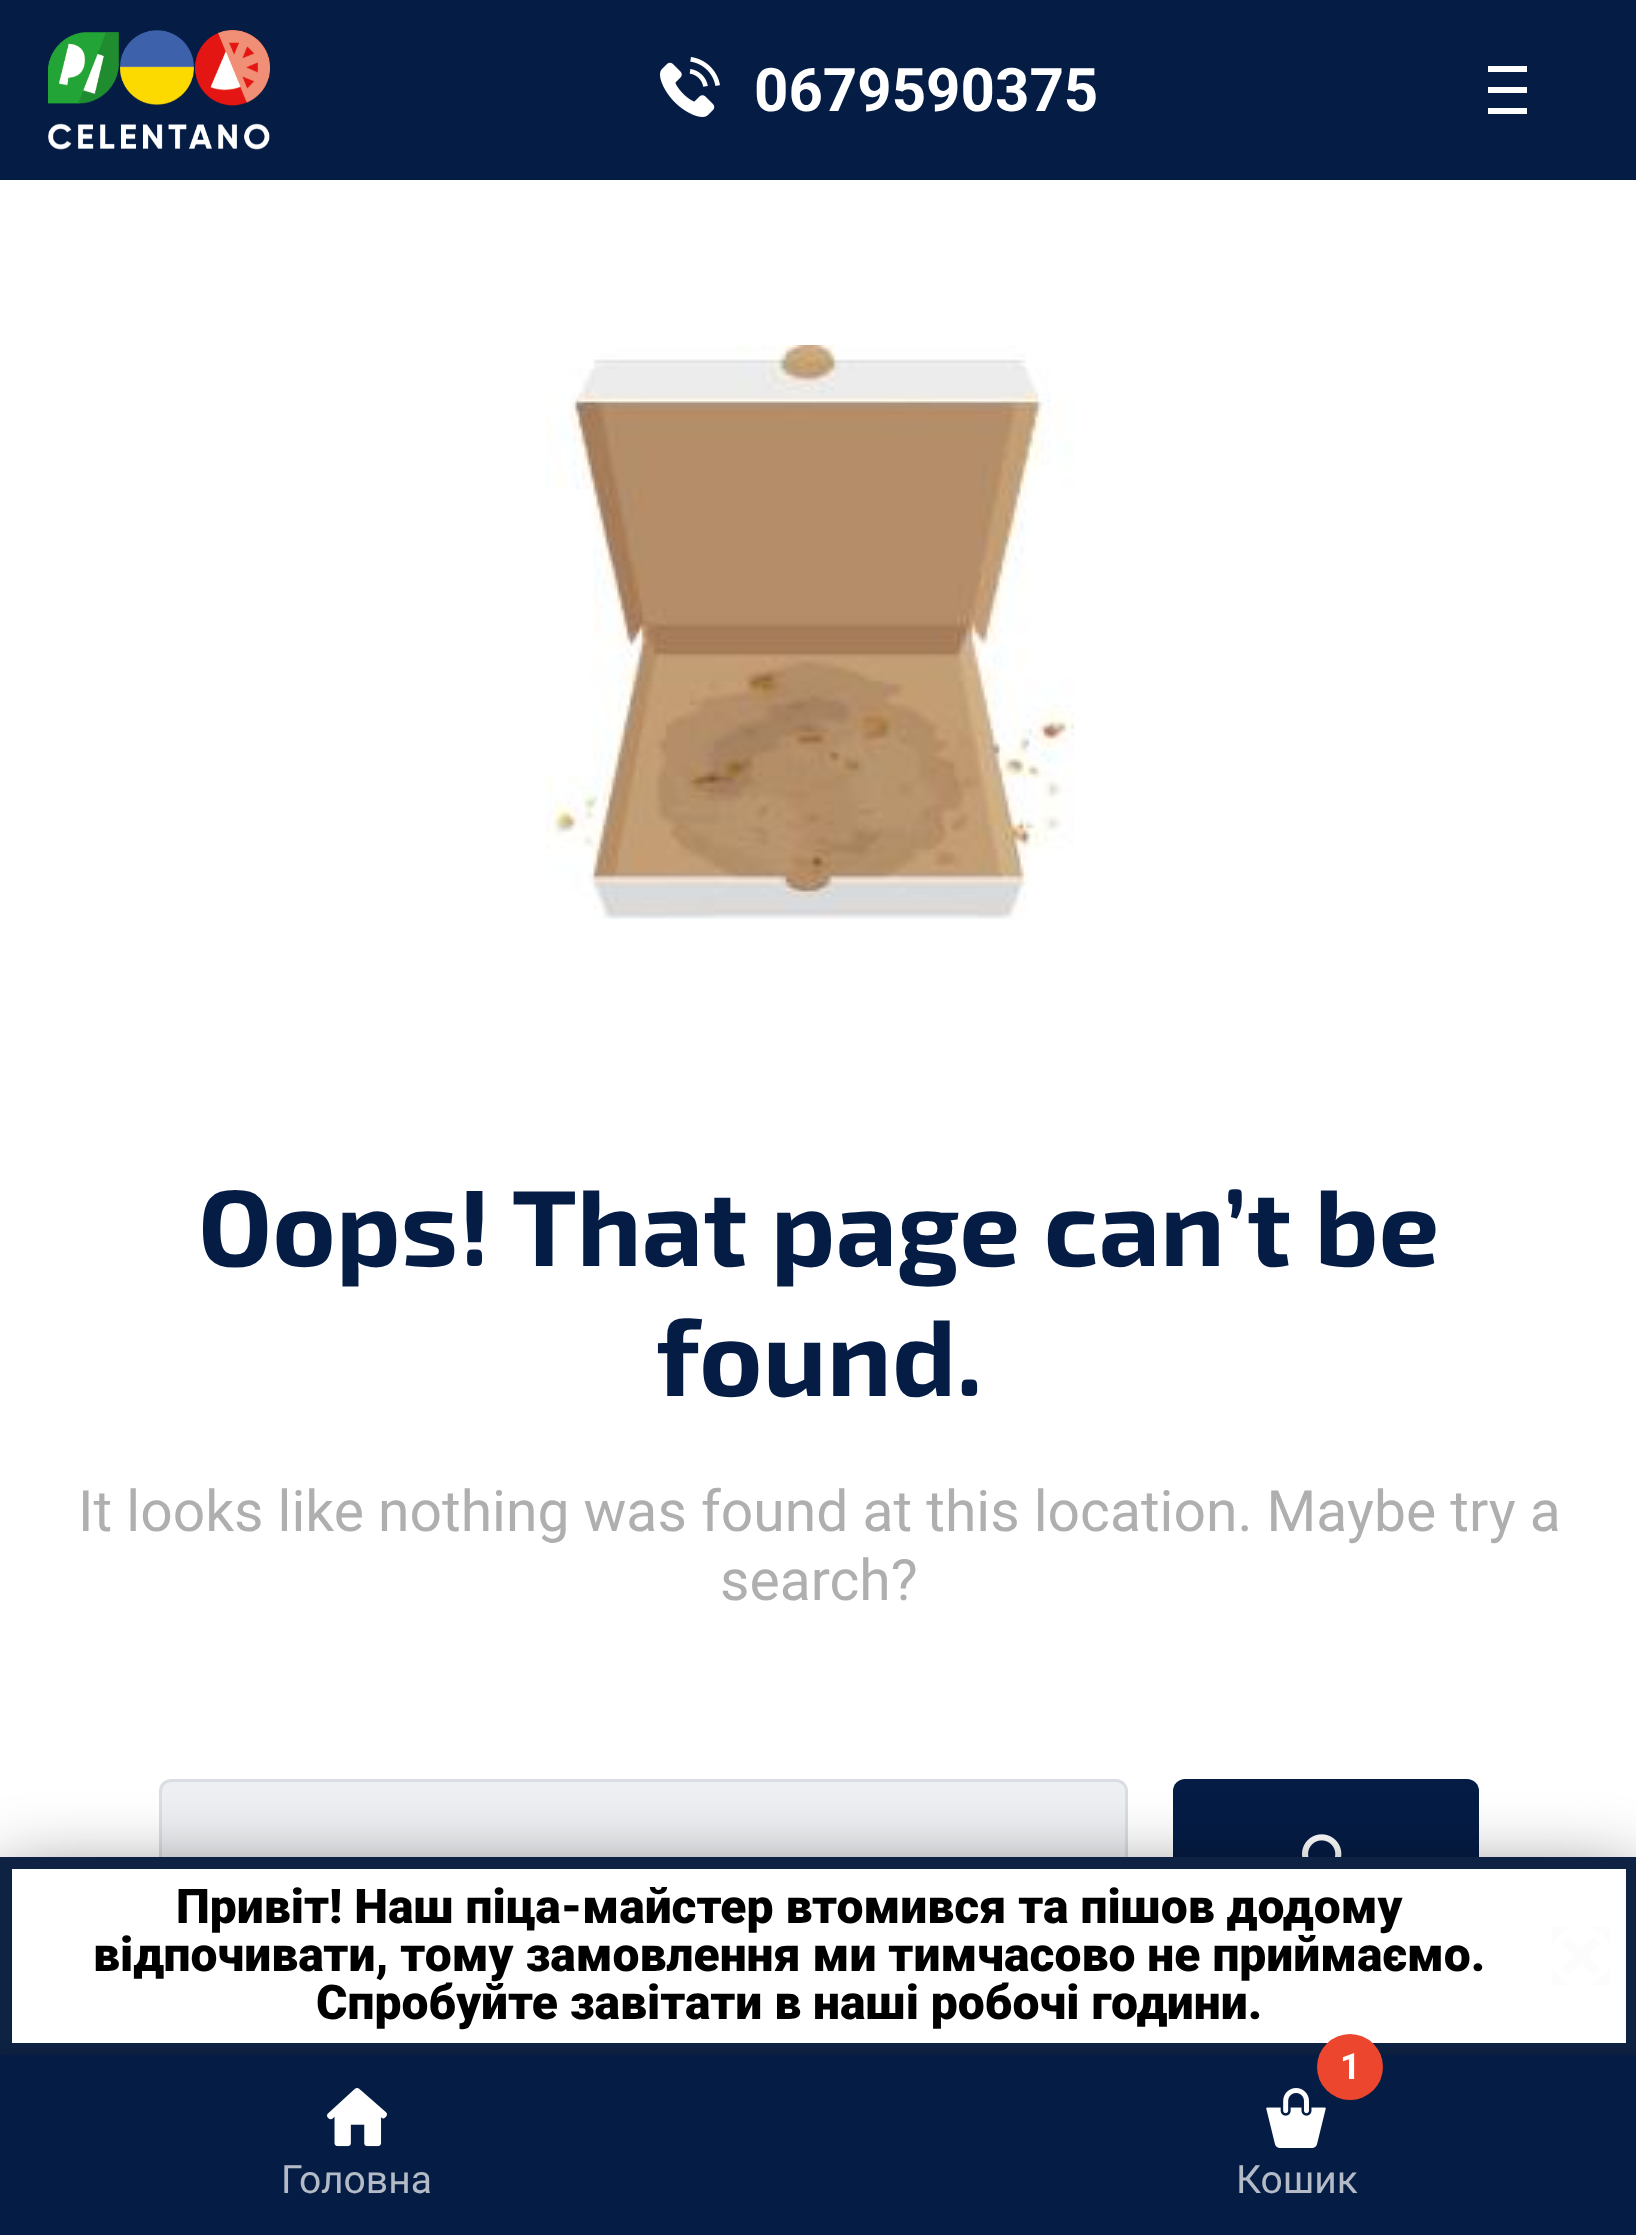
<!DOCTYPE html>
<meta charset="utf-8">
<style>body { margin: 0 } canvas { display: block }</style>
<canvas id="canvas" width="1636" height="2235"></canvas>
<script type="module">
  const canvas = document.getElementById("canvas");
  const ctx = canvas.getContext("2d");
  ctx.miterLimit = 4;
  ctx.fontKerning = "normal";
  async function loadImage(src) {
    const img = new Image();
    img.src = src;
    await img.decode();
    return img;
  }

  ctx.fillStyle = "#ffffff";
  ctx.fillRect(0, 0, 1636, 2235);
  ctx.fillStyle = "#051c45";
  ctx.fillRect(0, 0, 1636, 180);
  ctx.drawImage(await loadImage("img1.png"), 48, 30, 222, 120);
  ctx.drawImage(await loadImage("img2.png"), 660, 57, 60, 60);
  ctx.font = "bold 60px Roboto";
  ctx.fillStyle = "#ffffff";
  ctx.fillText("0679590375", 754, 111);
  ctx.beginPath();
  ctx.moveTo(1488, 66);
  ctx.lineTo(1527, 66);
  ctx.lineTo(1527, 72);
  ctx.lineTo(1488, 72);
  ctx.closePath();
  ctx.moveTo(1488, 87);
  ctx.lineTo(1527, 87);
  ctx.lineTo(1527, 93);
  ctx.lineTo(1488, 93);
  ctx.closePath();
  ctx.moveTo(1527, 108);
  ctx.lineTo(1488, 108);
  ctx.lineTo(1488, 114);
  ctx.lineTo(1527, 114);
  ctx.closePath();
  ctx.fill("evenodd");
  ctx.fillStyle = "#eeeff2";
  ctx.beginPath();
  ctx.roundRect(160.5, 1780.5, 966, 147, 10.5);
  ctx.fill();
  ctx.strokeStyle = "#dadde3";
  ctx.lineWidth = 3;
  ctx.stroke();
  ctx.fillStyle = "#051c45";
  ctx.beginPath();
  ctx.roundRect(1173, 1779, 306, 150, 12);
  ctx.fill();
  ctx.drawImage(await loadImage("img6.png"), 1302, 1834, 40, 23);
  ctx.fillStyle = "rgba(0, 0, 0, 0.7)";
  ctx.filter = "blur(40.5px)";
  ctx.beginPath();
  ctx.rect(0, 1887, 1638, 198);
  ctx.fill();
  ctx.filter = "none";
  ctx.fillStyle = "#ffffff";
  ctx.beginPath();
  ctx.rect(6, 1863, 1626, 186);
  ctx.fill();
  ctx.strokeStyle = "#0e2244";
  ctx.lineWidth = 12;
  ctx.stroke();
  ctx.fillStyle = "rgba(0, 0, 0, 0.08)";
  ctx.filter = "blur(4.5px)";
  ctx.beginPath();
  ctx.rect(0, 2049, 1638, 180);
  ctx.fill();
  ctx.filter = "none";
  ctx.fillStyle = "#051c45";
  ctx.fillRect(0, 2055, 1636, 180);
  ctx.drawImage(await loadImage("img3.png"), 327, 2088, 60, 59);
  ctx.font = "39px Roboto";
  ctx.fillStyle = "#b4bbc7";
  ctx.fillText("Головна", 281, 2193);
  ctx.drawImage(await loadImage("img4.png"), 1266, 2088, 60, 60);
  ctx.fillStyle = "#ed462f";
  ctx.beginPath();
  ctx.arc(1350, 2067, 33, 0, Math.PI * 2);
  ctx.fill();
  ctx.font = "bold 36px Roboto";
  ctx.fillStyle = "#ffffff";
  ctx.fillText("1", 1340, 2079);
  ctx.font = "39px Roboto";
  ctx.fillStyle = "#b4bbc7";
  ctx.fillText("Кошик", 1236, 2193);
  ctx.drawImage(await loadImage("img5.png"), 546, 345, 529, 576);
  ctx.font = "bold 108px 'Exo 2'";
  ctx.fillStyle = "#051c45";
  ctx.fillText("Oops! That page can’t be", 198, 1266);
  ctx.fillText("found.", 656, 1396);
  ctx.font = "57px Roboto";
  ctx.fillStyle = "#afafaf";
  ctx.fillText("It looks like nothing was found at this location. Maybe try a", 78, 1531);
  ctx.fillText("search?", 720, 1600);
  ctx.font = "900 48px Roboto";
  ctx.fillStyle = "#000000";
  ctx.fillText("Привіт! Наш піца-майстер втомився та пішов додому", 176, 1923);
  ctx.fillText("відпочивати, тому замовлення ми тимчасово не приймаємо.", 93, 1971);
  ctx.fillText("Спробуйте завітати в наші робочі години.", 316, 2019);
  ctx.drawImage(await loadImage("img7.png"), 1552, 1927, 58, 58);
</script>
